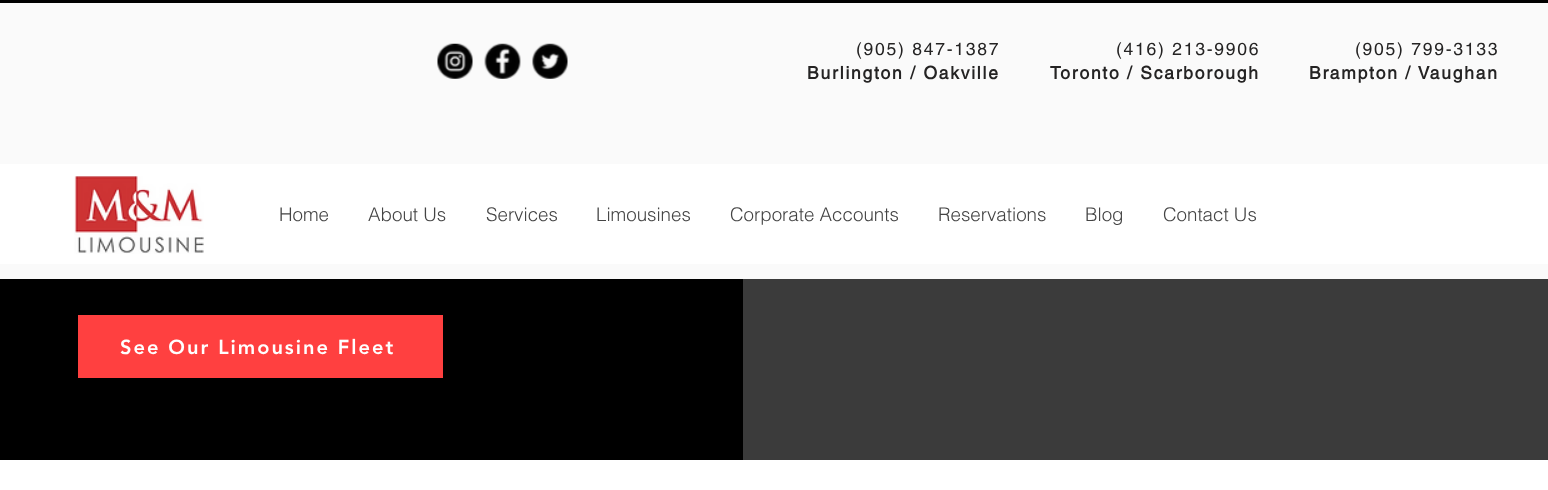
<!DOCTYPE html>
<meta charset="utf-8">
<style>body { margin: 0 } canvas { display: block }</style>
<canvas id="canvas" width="1548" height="490"></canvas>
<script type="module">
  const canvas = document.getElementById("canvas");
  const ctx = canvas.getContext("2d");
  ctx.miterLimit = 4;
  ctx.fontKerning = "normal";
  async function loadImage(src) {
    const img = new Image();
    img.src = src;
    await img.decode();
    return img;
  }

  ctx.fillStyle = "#000000";
  ctx.fillRect(0, 0, 1548, 490);
  ctx.fillStyle = "#fafafa";
  ctx.fillRect(0, 3, 1548, 276);
  ctx.drawImage(await loadImage("img1.png"), 437, 43, 36, 36);
  ctx.drawImage(await loadImage("img2.png"), 484, 43, 37, 36);
  ctx.drawImage(await loadImage("img3.png"), 532, 43, 36, 36);
  ctx.letterSpacing = "1.75px";
  ctx.font = "17.5px helvetica";
  ctx.fillStyle = "#242323";
  ctx.fillText("(905) 847-1387", 856, 55);
  ctx.font = "bold 17.5px helvetica";
  ctx.fillText("Burlington / Oakville", 807, 79);
  ctx.font = "17.5px helvetica";
  ctx.fillText("(416) 213-9906", 1116, 55);
  ctx.font = "bold 17.5px helvetica";
  ctx.fillText("Toronto / Scarborough", 1050, 79);
  ctx.font = "17.5px helvetica";
  ctx.fillText("(905) 799-3133", 1355, 55);
  ctx.font = "bold 17.5px helvetica";
  ctx.fillText("Brampton / Vaughan", 1309, 79);
  ctx.fillStyle = "#ffffff";
  ctx.fillRect(0, 164, 1548, 100);
  ctx.drawImage(await loadImage("img4.png"), 74, 176, 130, 78);
  ctx.letterSpacing = "0px";
  ctx.font = "300 18.75px helvetica";
  ctx.fillStyle = "#444444";
  ctx.fillText("Home", 279, 221);
  ctx.fillText("About Us", 368, 221);
  ctx.fillText("Services", 486, 221);
  ctx.fillText("Limousines", 596, 221);
  ctx.fillText("Corporate Accounts", 730, 221);
  ctx.fillText("Reservations", 938, 221);
  ctx.fillText("Blog", 1085, 221);
  ctx.fillText("Contact Us", 1163, 221);
  ctx.fillStyle = "#ff4040";
  ctx.fillRect(78, 315, 365, 63);
  ctx.letterSpacing = "2px";
  ctx.font = "900 20px 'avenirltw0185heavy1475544'";
  ctx.fillStyle = "#ffffff";
  ctx.fillText("See Our Limousine Fleet", 120, 354);
  ctx.fillStyle = "#3b3b3b";
  ctx.fillRect(743, 279, 805, 181);
  ctx.fillStyle = "#ffffff";
  ctx.fillRect(0, 460, 1548, 30);
</script>
